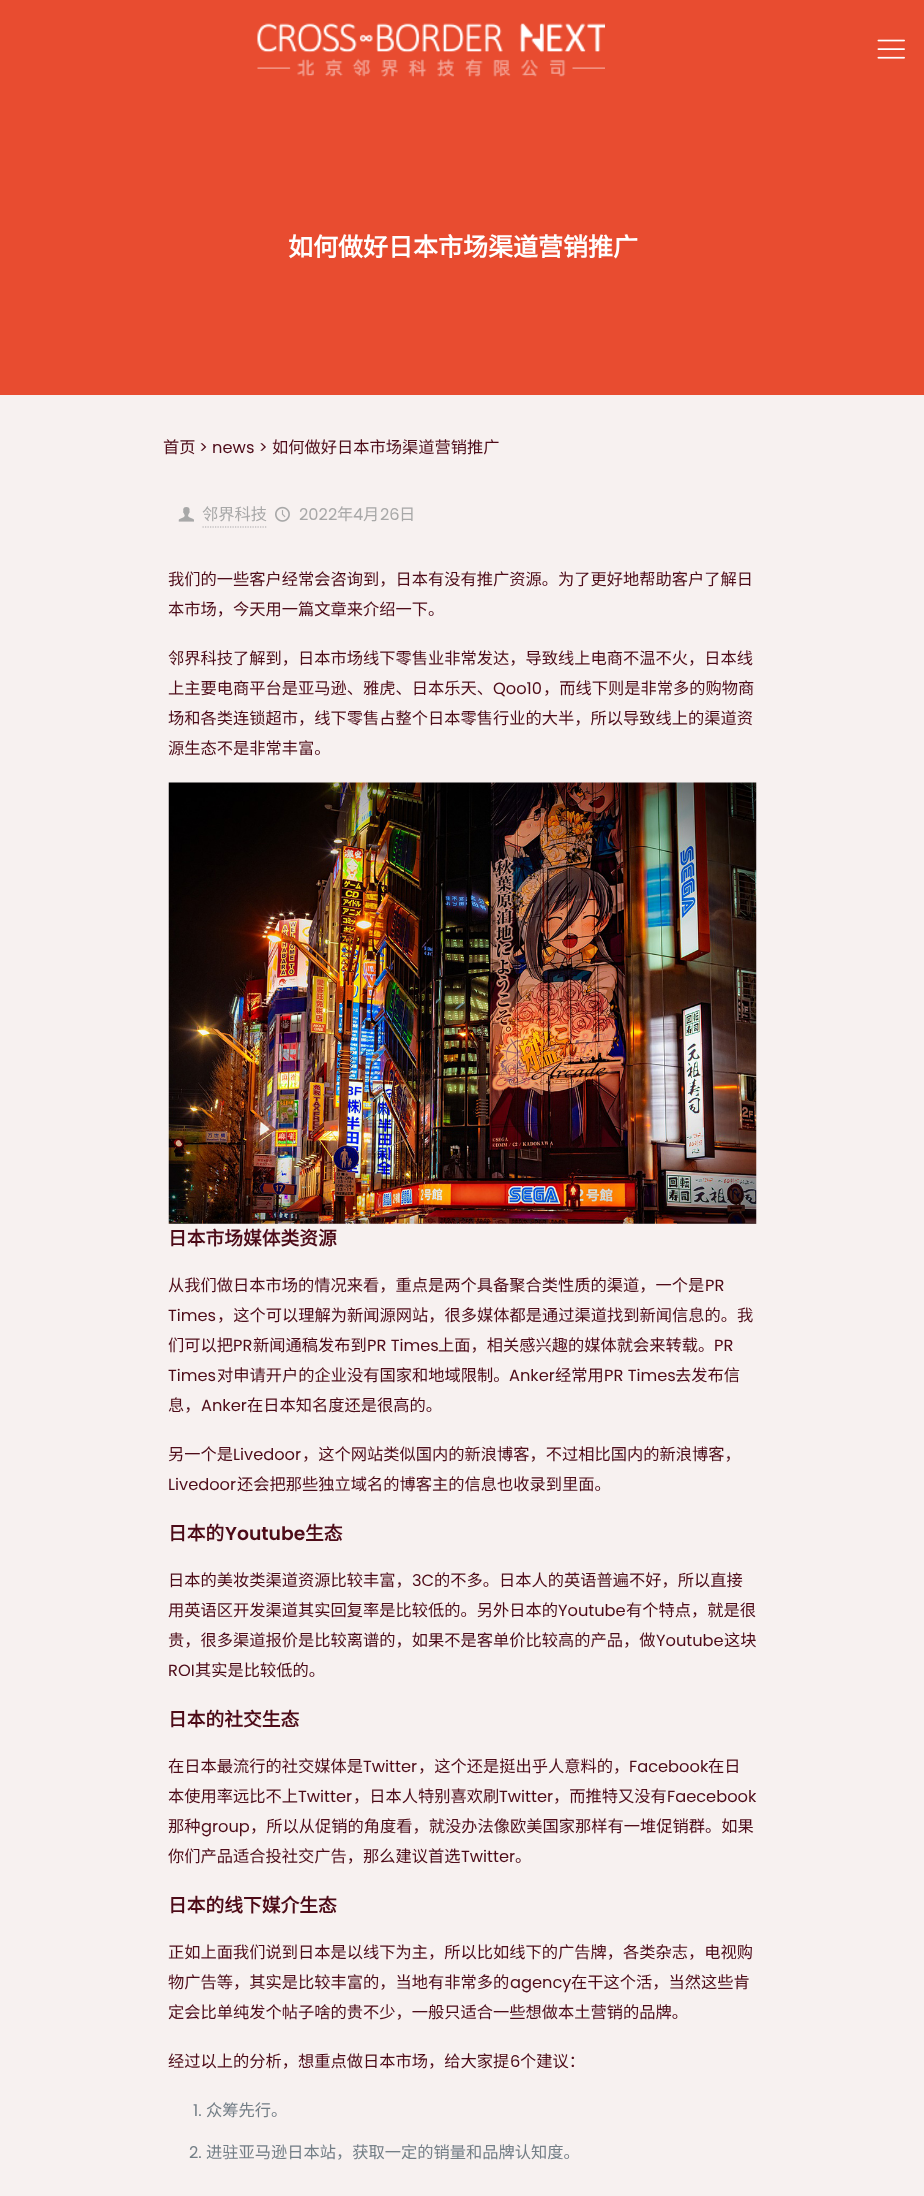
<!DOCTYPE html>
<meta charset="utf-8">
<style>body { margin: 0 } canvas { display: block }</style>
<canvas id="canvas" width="924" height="2196"></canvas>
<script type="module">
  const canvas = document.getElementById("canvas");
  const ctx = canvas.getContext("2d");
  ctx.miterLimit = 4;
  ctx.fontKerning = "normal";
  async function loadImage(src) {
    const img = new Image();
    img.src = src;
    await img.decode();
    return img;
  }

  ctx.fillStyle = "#f7f1f0";
  ctx.fillRect(0, 0, 924, 2196);
  ctx.fillStyle = "#e84c30";
  ctx.fillRect(0, 0, 924, 395);
  ctx.drawImage(await loadImage("img1.png"), 257, 23, 348, 54);
  ctx.drawImage(await loadImage("img2.png"), 877, 39, 28, 20);
  ctx.font = "bold 25px Noto Sans CJK SC";
  ctx.fillStyle = "#ffffff";
  ctx.fillText("如何做好日本市场渠道营销推广", 288, 256);
  ctx.font = "16.25px Noto Sans CJK SC";
  ctx.fillStyle = "#4d0b18";
  ctx.fillText("首页", 163, 453);
  ctx.font = "16.25px Poppins";
  ctx.fillText("> news >", 199, 453);
  ctx.font = "16.25px Noto Sans CJK SC";
  ctx.fillText("如何做好日本市场渠道营销推广", 272, 453);
  ctx.drawImage(await loadImage("img3.png"), 178, 507, 16, 15);
  ctx.fillStyle = "#a8a8a8";
  ctx.fillText("邻界科技", 202, 520);
  ctx.beginPath();
  ctx.moveTo(202.5, 527);
  ctx.lineTo(267.5, 527);
  ctx.strokeStyle = "#a8a8a8";
  ctx.lineWidth = 1.2;
  ctx.setLineDash([1.25, 1.25]);
  ctx.stroke();
  ctx.drawImage(await loadImage("img4.png"), 275, 506, 15, 16);
  ctx.font = "16.25px Poppins";
  ctx.fillText("2022", 299, 520);
  ctx.font = "16.25px Noto Sans CJK SC";
  ctx.fillText("年", 337, 520);
  ctx.font = "16.25px Poppins";
  ctx.fillText("4", 353, 520);
  ctx.font = "16.25px Noto Sans CJK SC";
  ctx.fillText("月", 363, 520);
  ctx.font = "16.25px Poppins";
  ctx.fillText("26", 380, 520);
  ctx.font = "16.25px Noto Sans CJK SC";
  ctx.fillText("日", 399, 520);
  ctx.fillStyle = "#4d0b18";
  ctx.fillText("我们的一些客户经常会咨询到，日本有没有推广资源。为了更好地帮助客户了解日", 168, 585);
  ctx.fillText("本市场，今天用一篇文章来介绍一下。", 168, 615);
  ctx.fillText("邻界科技了解到，日本市场线下零售业非常发达，导致线上电商不温不火，日本线", 168, 664);
  ctx.fillText("上主要电商平台是亚马逊、雅虎、日本乐天、", 168, 694);
  ctx.font = "16.25px Poppins";
  ctx.fillText("Qoo10", 493, 694);
  ctx.font = "16.25px Noto Sans CJK SC";
  ctx.fillText("，而线下则是非常多的购物商", 543, 694);
  ctx.fillText("场和各类连锁超市，线下零售占整个日本零售行业的大半，所以导致线上的渠道资", 168, 724);
  ctx.fillText("源生态不是非常丰富。", 168, 754);
  ctx.drawImage(await loadImage("img5.png"), 168, 782, 589, 442);
  ctx.font = "bold 18.75px Noto Sans CJK SC";
  ctx.fillText("日本市场媒体类资源", 168, 1245);
  ctx.font = "16.25px Noto Sans CJK SC";
  ctx.fillText("从我们做日本市场的情况来看，重点是两个具备聚合类性质的渠道，一个是", 168, 1291);
  ctx.font = "16.25px Poppins";
  ctx.fillText("PR", 705, 1291);
  ctx.fillText("Times", 168, 1321);
  ctx.font = "16.25px Noto Sans CJK SC";
  ctx.fillText("，这个可以理解为新闻源网站，很多媒体都是通过渠道找到新闻信息的。我", 217, 1321);
  ctx.fillText("们可以把", 168, 1351);
  ctx.font = "16.25px Poppins";
  ctx.fillText("PR", 233, 1351);
  ctx.font = "16.25px Noto Sans CJK SC";
  ctx.fillText("新闻通稿发布到", 253, 1351);
  ctx.font = "16.25px Poppins";
  ctx.fillText("PR Times", 367, 1351);
  ctx.font = "16.25px Noto Sans CJK SC";
  ctx.fillText("上面，相关感兴趣的媒体就会来转载。", 438, 1351);
  ctx.font = "16.25px Poppins";
  ctx.fillText("PR", 714, 1351);
  ctx.fillText("Times", 168, 1381);
  ctx.font = "16.25px Noto Sans CJK SC";
  ctx.fillText("对申请开户的企业没有国家和地域限制。", 217, 1381);
  ctx.font = "16.25px Poppins";
  ctx.fillText("Anker", 509, 1381);
  ctx.font = "16.25px Noto Sans CJK SC";
  ctx.fillText("经常用", 555, 1381);
  ctx.font = "16.25px Poppins";
  ctx.fillText("PR Times", 604, 1381);
  ctx.font = "16.25px Noto Sans CJK SC";
  ctx.fillText("去发布信", 675, 1381);
  ctx.fillText("息，", 168, 1411);
  ctx.font = "16.25px Poppins";
  ctx.fillText("Anker", 201, 1411);
  ctx.font = "16.25px Noto Sans CJK SC";
  ctx.fillText("在日本知名度还是很高的。", 247, 1411);
  ctx.fillText("另一个是", 168, 1460);
  ctx.font = "16.25px Poppins";
  ctx.fillText("Livedoor", 233, 1460);
  ctx.font = "16.25px Noto Sans CJK SC";
  ctx.fillText("，这个网站类似国内的新浪博客，不过相比国内的新浪博客，", 302, 1460);
  ctx.font = "16.25px Poppins";
  ctx.fillText("Livedoor", 168, 1490);
  ctx.font = "16.25px Noto Sans CJK SC";
  ctx.fillText("还会把那些独立域名的博客主的信息也收录到里面。", 237, 1490);
  ctx.font = "bold 18.75px Noto Sans CJK SC";
  ctx.fillText("日本的", 168, 1540);
  ctx.font = "600 18.75px Poppins";
  ctx.fillText("Youtube", 225, 1540);
  ctx.font = "bold 18.75px Noto Sans CJK SC";
  ctx.fillText("生态", 305, 1540);
  ctx.font = "16.25px Noto Sans CJK SC";
  ctx.fillText("日本的美妆类渠道资源比较丰富，", 168, 1586);
  ctx.font = "16.25px Poppins";
  ctx.fillText("3C", 412, 1586);
  ctx.font = "16.25px Noto Sans CJK SC";
  ctx.fillText("的不多。日本人的英语普遍不好，所以直接", 434, 1586);
  ctx.fillText("用英语区开发渠道其实回复率是比较低的。另外日本的", 168, 1616);
  ctx.font = "16.25px Poppins";
  ctx.fillText("Youtube", 558, 1616);
  ctx.font = "16.25px Noto Sans CJK SC";
  ctx.fillText("有个特点，就是很", 626, 1616);
  ctx.fillText("贵，很多渠道报价是比较离谱的，如果不是客单价比较高的产品，做", 168, 1646);
  ctx.font = "16.25px Poppins";
  ctx.fillText("Youtube", 656, 1646);
  ctx.font = "16.25px Noto Sans CJK SC";
  ctx.fillText("这块", 724, 1646);
  ctx.font = "16.25px Poppins";
  ctx.fillText("ROI", 168, 1676);
  ctx.font = "16.25px Noto Sans CJK SC";
  ctx.fillText("其实是比较低的。", 195, 1676);
  ctx.font = "bold 18.75px Noto Sans CJK SC";
  ctx.fillText("日本的社交生态", 168, 1726);
  ctx.font = "16.25px Noto Sans CJK SC";
  ctx.fillText("在日本最流行的社交媒体是", 168, 1772);
  ctx.font = "16.25px Poppins";
  ctx.fillText("Twitter", 363, 1772);
  ctx.font = "16.25px Noto Sans CJK SC";
  ctx.fillText("，这个还是挺出乎人意料的，", 418, 1772);
  ctx.font = "16.25px Poppins";
  ctx.fillText("Facebook", 629, 1772);
  ctx.font = "16.25px Noto Sans CJK SC";
  ctx.fillText("在日", 708, 1772);
  ctx.fillText("本使用率远比不上", 168, 1802);
  ctx.font = "16.25px Poppins";
  ctx.fillText("Twitter", 298, 1802);
  ctx.font = "16.25px Noto Sans CJK SC";
  ctx.fillText("，日本人特别喜欢刷", 353, 1802);
  ctx.font = "16.25px Poppins";
  ctx.fillText("Twitter", 499, 1802);
  ctx.font = "16.25px Noto Sans CJK SC";
  ctx.fillText("，而推特又没有", 553, 1802);
  ctx.font = "16.25px Poppins";
  ctx.fillText("Faecebook", 667, 1802);
  ctx.font = "16.25px Noto Sans CJK SC";
  ctx.fillText("那种", 168, 1832);
  ctx.font = "16.25px Poppins";
  ctx.fillText("group", 201, 1832);
  ctx.font = "16.25px Noto Sans CJK SC";
  ctx.fillText("，所以从促销的角度看，就没办法像欧美国家那样有一堆促销群。如果", 250, 1832);
  ctx.fillText("你们产品适合投社交广告，那么建议首选", 168, 1862);
  ctx.font = "16.25px Poppins";
  ctx.fillText("Twitter", 461, 1862);
  ctx.font = "16.25px Noto Sans CJK SC";
  ctx.fillText("。", 515, 1862);
  ctx.font = "bold 18.75px Noto Sans CJK SC";
  ctx.fillText("日本的线下媒介生态", 168, 1912);
  ctx.font = "16.25px Noto Sans CJK SC";
  ctx.fillText("正如上面我们说到日本是以线下为主，所以比如线下的广告牌，各类杂志，电视购", 168, 1958);
  ctx.fillText("物广告等，其实是比较丰富的，当地有非常多的", 168, 1988);
  ctx.font = "16.25px Poppins";
  ctx.fillText("agency", 510, 1988);
  ctx.font = "16.25px Noto Sans CJK SC";
  ctx.fillText("在干这个活，当然这些肯", 571, 1988);
  ctx.fillText("定会比单纯发个帖子啥的贵不少，一般只适合一些想做本土营销的品牌。", 168, 2018);
  ctx.fillText("经过以上的分析，想重点做日本市场，给大家提", 168, 2067);
  ctx.font = "16.25px Poppins";
  ctx.fillText("6", 510, 2067);
  ctx.font = "16.25px Noto Sans CJK SC";
  ctx.fillText("个建议：", 520, 2067);
  ctx.font = "16.25px Poppins";
  ctx.fillStyle = "#737e86";
  ctx.fillText("1.", 193, 2116);
  ctx.font = "16.25px Noto Sans CJK SC";
  ctx.fillText("众筹先行。", 206, 2116);
  ctx.font = "16.25px Poppins";
  ctx.fillText("2.", 189, 2158);
  ctx.font = "16.25px Noto Sans CJK SC";
  ctx.fillText("进驻亚马逊日本站，获取一定的销量和品牌认知度。", 206, 2158);
</script>
